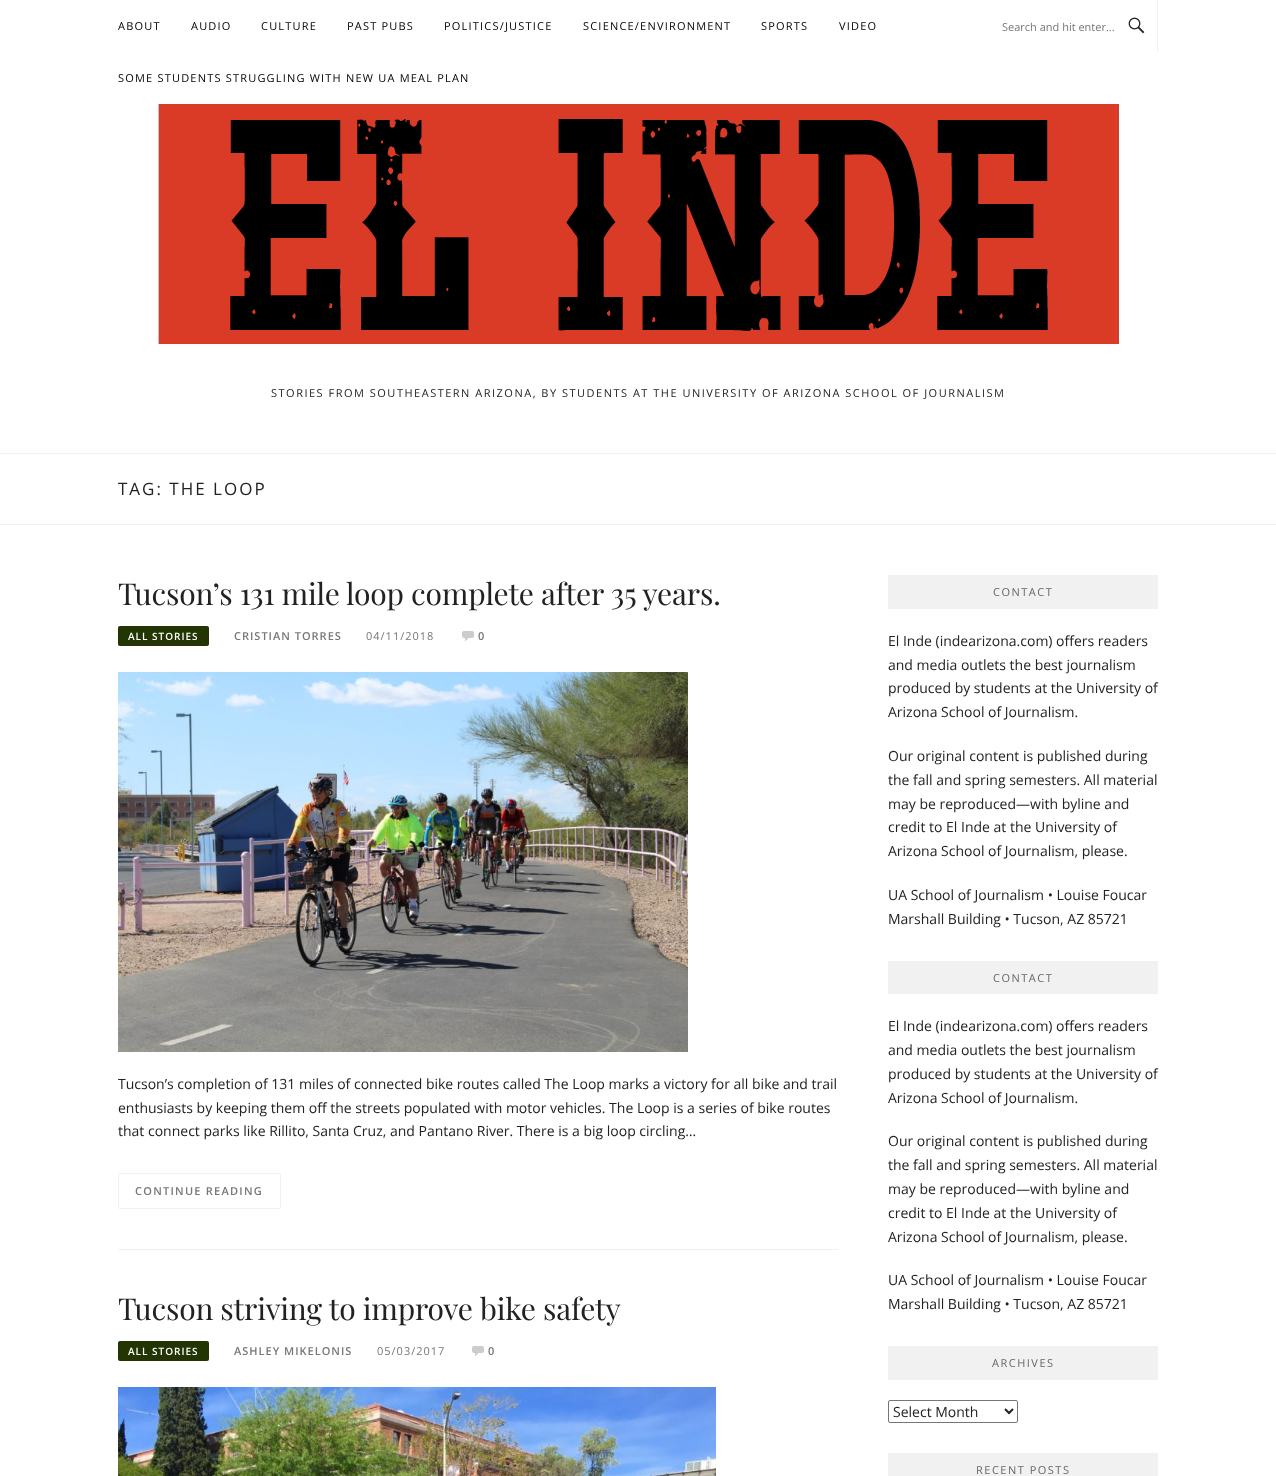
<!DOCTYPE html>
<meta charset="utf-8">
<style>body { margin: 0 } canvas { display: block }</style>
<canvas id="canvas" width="1276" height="1476"></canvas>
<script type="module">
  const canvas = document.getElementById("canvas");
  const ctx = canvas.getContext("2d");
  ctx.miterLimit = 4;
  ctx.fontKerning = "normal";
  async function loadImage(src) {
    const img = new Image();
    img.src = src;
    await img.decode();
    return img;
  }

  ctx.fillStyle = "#ffffff";
  ctx.fillRect(0, 0, 1276, 1476);
  ctx.letterSpacing = "1.2px";
  ctx.font = "11px Open Sans";
  ctx.fillStyle = "#000000";
  ctx.fillText("ABOUT", 118, 30);
  ctx.fillText("AUDIO", 191, 30);
  ctx.fillText("CULTURE", 261, 30);
  ctx.fillText("PAST PUBS", 347, 30);
  ctx.fillText("POLITICS/JUSTICE", 444, 30);
  ctx.fillText("SCIENCE/ENVIRONMENT", 583, 30);
  ctx.fillText("SPORTS", 761, 30);
  ctx.fillText("VIDEO", 839, 30);
  ctx.fillText("SOME STUDENTS STRUGGLING WITH NEW UA MEAL PLAN", 118, 82);
  ctx.fillStyle = "#f1f1f1";
  ctx.fillRect(1157, 0, 1, 52);
  ctx.letterSpacing = "0px";
  ctx.fillStyle = "#777777";
  ctx.fillText("Search and hit enter...", 1002, 31);
  ctx.drawImage(await loadImage("img1.png"), 1128, 17, 17, 17);
  ctx.drawImage(await loadImage("img2.png"), 158, 104, 961, 240);
  ctx.letterSpacing = "1.5px";
  ctx.fillStyle = "#222222";
  ctx.fillText("STORIES FROM SOUTHEASTERN ARIZONA, BY STUDENTS AT THE UNIVERSITY OF ARIZONA SCHOOL OF JOURNALISM", 271, 397);
  ctx.fillStyle = "#f1f1f1";
  ctx.fillRect(0, 453, 1276, 1);
  ctx.letterSpacing = "2px";
  ctx.font = "17px Open Sans";
  ctx.fillStyle = "#222222";
  ctx.fillText("TAG: THE LOOP", 118, 495);
  ctx.fillStyle = "#f1f1f1";
  ctx.fillRect(0, 524, 1276, 1);
  ctx.fillRect(118, 1249, 720, 1);
  ctx.letterSpacing = "-0.2px";
  ctx.font = "30px Playfair Display";
  ctx.fillStyle = "#222222";
  ctx.fillText("Tucson’s 131 mile loop complete after 35 years.", 118, 605);
  ctx.fillStyle = "#243504";
  ctx.beginPath();
  ctx.roundRect(118, 626, 91, 20, 2);
  ctx.fill();
  ctx.letterSpacing = "1px";
  ctx.font = "600 10px Open Sans";
  ctx.fillStyle = "#ffffff";
  ctx.fillText("ALL STORIES", 128, 640);
  ctx.font = "600 11px Open Sans";
  ctx.fillStyle = "#777777";
  ctx.fillText("CRISTIAN TORRES", 234, 640);
  ctx.font = "11px Open Sans";
  ctx.fillText("04/11/2018", 366, 640);
  ctx.drawImage(await loadImage("img3.png"), 462, 631, 12, 11);
  ctx.font = "600 11px Open Sans";
  ctx.fillText("0", 478, 640);
  ctx.drawImage(await loadImage("img4.png"), 118, 672, 570, 380);
  ctx.letterSpacing = "0px";
  ctx.font = "14px Open Sans";
  ctx.fillStyle = "#222222";
  ctx.fillText("Tucson’s completion of 131 miles of connected bike routes called The Loop marks a victory for all bike and trail", 118, 1089);
  ctx.fillText("enthusiasts by keeping them off the streets populated with motor vehicles. The Loop is a series of bike routes", 118, 1113);
  ctx.fillText("that connect parks like Rillito, Santa Cruz, and Pantano River. There is a big loop circling…", 118, 1136);
  ctx.beginPath();
  ctx.roundRect(118.5, 1173.5, 162, 35, 1.5);
  ctx.strokeStyle = "#f1f1f1";
  ctx.stroke();
  ctx.letterSpacing = "1.25px";
  ctx.font = "600 11px Open Sans";
  ctx.fillStyle = "#777777";
  ctx.fillText("CONTINUE READING", 135, 1195);
  ctx.letterSpacing = "-0.2px";
  ctx.font = "30px Playfair Display";
  ctx.fillStyle = "#222222";
  ctx.fillText("Tucson striving to improve bike safety", 118, 1320);
  ctx.fillStyle = "#243504";
  ctx.beginPath();
  ctx.roundRect(118, 1341, 91, 20, 2);
  ctx.fill();
  ctx.letterSpacing = "1px";
  ctx.font = "600 10px Open Sans";
  ctx.fillStyle = "#ffffff";
  ctx.fillText("ALL STORIES", 128, 1355);
  ctx.font = "600 11px Open Sans";
  ctx.fillStyle = "#777777";
  ctx.fillText("ASHLEY MIKELONIS", 234, 1355);
  ctx.font = "11px Open Sans";
  ctx.fillText("05/03/2017", 377, 1355);
  ctx.drawImage(await loadImage("img3.png"), 472, 1346, 12, 11);
  ctx.font = "600 11px Open Sans";
  ctx.fillText("0", 488, 1355);
  ctx.drawImage(await loadImage("img5.png"), 118, 1387, 598, 89);
  ctx.fillStyle = "#f1f1f1";
  ctx.fillRect(888, 575, 270, 34);
  ctx.letterSpacing = "1.5px";
  ctx.font = "11px Open Sans";
  ctx.fillStyle = "#666666";
  ctx.fillText("CONTACT", 993, 596);
  ctx.letterSpacing = "0px";
  ctx.font = "14px Open Sans";
  ctx.fillStyle = "#222222";
  ctx.fillText("El Inde (indearizona.com) offers readers", 888, 646);
  ctx.fillText("and media outlets the best journalism", 888, 670);
  ctx.fillText("produced by students at the University of", 888, 693);
  ctx.fillText("Arizona School of Journalism.", 888, 717);
  ctx.fillText("Our original content is published during", 888, 761);
  ctx.fillText("the fall and spring semesters. All material", 888, 785);
  ctx.fillText("may be reproduced—with byline and", 888, 809);
  ctx.fillText("credit to El Inde at the University of", 888, 832);
  ctx.fillText("Arizona School of Journalism, please.", 888, 856);
  ctx.fillText("UA School of Journalism • Louise Foucar", 888, 900);
  ctx.fillText("Marshall Building • Tucson, AZ 85721", 888, 924);
  ctx.fillStyle = "#f1f1f1";
  ctx.fillRect(888, 961, 270, 33);
  ctx.letterSpacing = "1.5px";
  ctx.font = "11px Open Sans";
  ctx.fillStyle = "#666666";
  ctx.fillText("CONTACT", 993, 982);
  ctx.letterSpacing = "0px";
  ctx.font = "14px Open Sans";
  ctx.fillStyle = "#222222";
  ctx.fillText("El Inde (indearizona.com) offers readers", 888, 1031);
  ctx.fillText("and media outlets the best journalism", 888, 1055);
  ctx.fillText("produced by students at the University of", 888, 1079);
  ctx.fillText("Arizona School of Journalism.", 888, 1103);
  ctx.fillText("Our original content is published during", 888, 1146);
  ctx.fillText("the fall and spring semesters. All material", 888, 1170);
  ctx.fillText("may be reproduced—with byline and", 888, 1194);
  ctx.fillText("credit to El Inde at the University of", 888, 1218);
  ctx.fillText("Arizona School of Journalism, please.", 888, 1242);
  ctx.fillText("UA School of Journalism • Louise Foucar", 888, 1285);
  ctx.fillText("Marshall Building • Tucson, AZ 85721", 888, 1309);
  ctx.fillStyle = "#f1f1f1";
  ctx.fillRect(888, 1346, 270, 34);
  ctx.letterSpacing = "1.5px";
  ctx.font = "11px Open Sans";
  ctx.fillStyle = "#666666";
  ctx.fillText("ARCHIVES", 992, 1367);
  ctx.beginPath();
  ctx.roundRect(888.5, 1400.5, 129, 22, 1.5);
  ctx.strokeStyle = "#767676";
  ctx.stroke();
  ctx.beginPath();
  ctx.moveTo(1005, 1409);
  ctx.lineTo(1009, 1413);
  ctx.lineTo(1013, 1409);
  ctx.strokeStyle = "#222222";
  ctx.lineWidth = 2;
  ctx.stroke();
  ctx.letterSpacing = "0px";
  ctx.font = "14px Open Sans";
  ctx.fillStyle = "#222222";
  ctx.fillText("Select Month", 893, 1417);
  ctx.fillStyle = "#f1f1f1";
  ctx.fillRect(888, 1453, 270, 23);
  ctx.letterSpacing = "1.5px";
  ctx.font = "11px Open Sans";
  ctx.fillStyle = "#666666";
  ctx.fillText("RECENT POSTS", 976, 1474);
</script>
